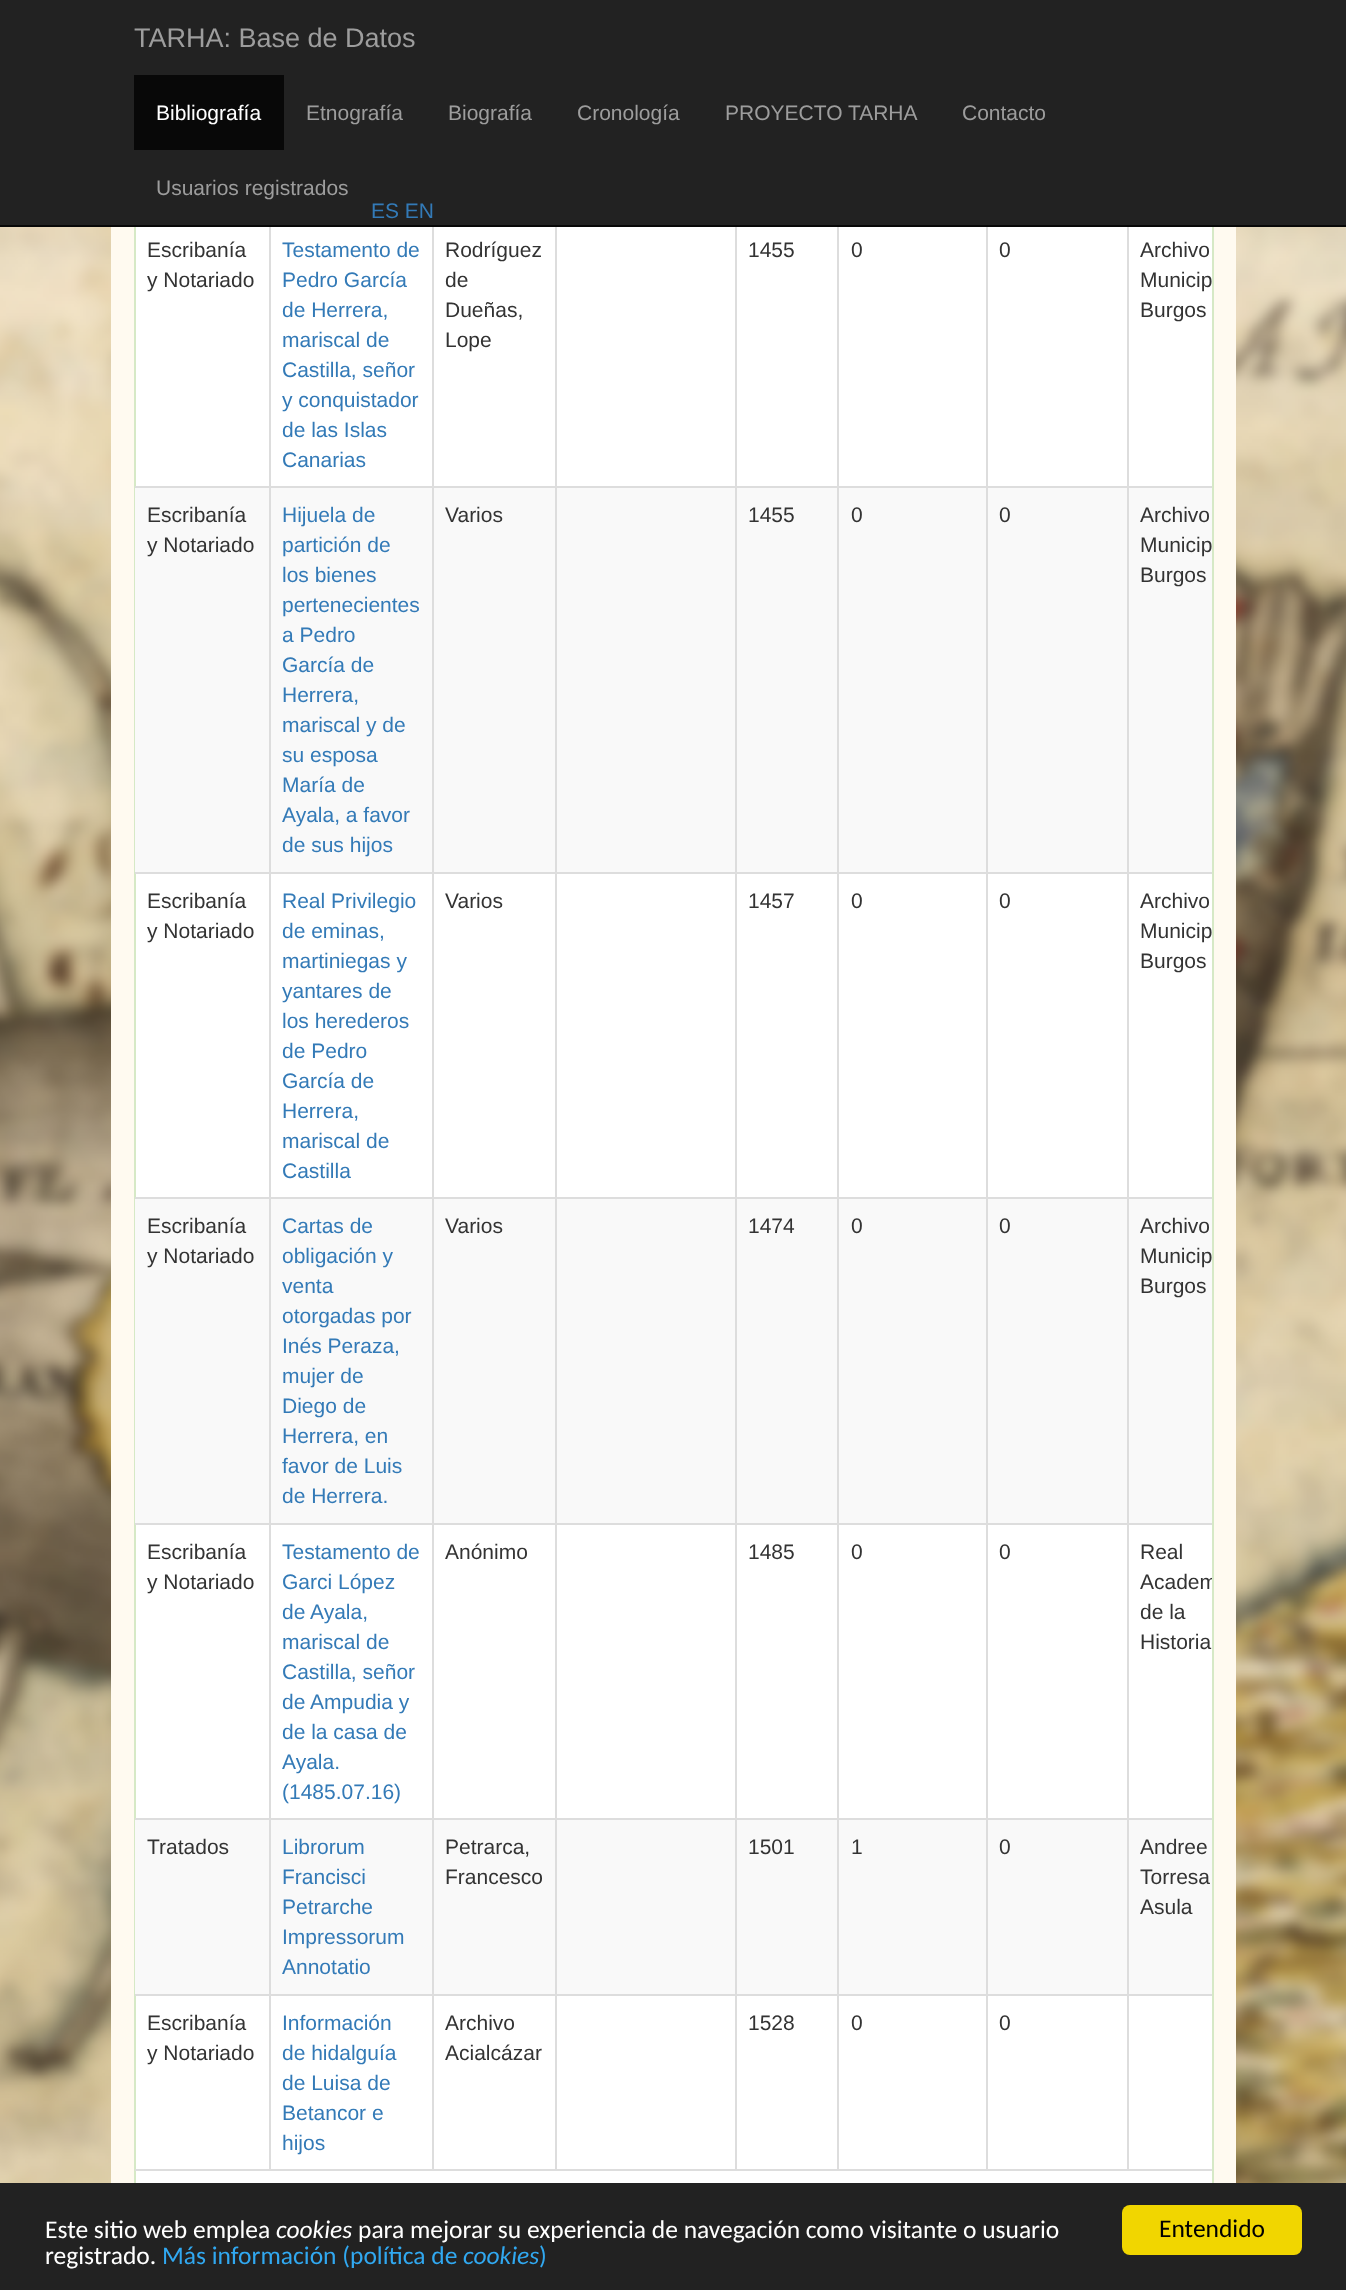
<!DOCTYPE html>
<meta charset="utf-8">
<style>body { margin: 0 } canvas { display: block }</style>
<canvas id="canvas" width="1346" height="2290"></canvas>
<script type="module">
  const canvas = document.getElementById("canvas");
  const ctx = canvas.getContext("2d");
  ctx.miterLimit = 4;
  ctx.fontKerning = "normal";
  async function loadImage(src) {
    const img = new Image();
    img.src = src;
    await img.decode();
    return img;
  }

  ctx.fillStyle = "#ffffff";
  ctx.fillRect(0, 0, 1346, 2290);
  ctx.drawImage(await loadImage("img1.png"), 0, 227, 1346, 1956);
  ctx.fillStyle = "#fffaf0";
  ctx.fillRect(111, 227, 1125, 1956);
  ctx.fillStyle = "#ffffff";
  ctx.fillRect(136, 227, 1076, 1956);
  ctx.strokeStyle = "#d6e9c6";
  ctx.lineWidth = 2;
  ctx.strokeRect(135, -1, 1078, 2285);
  ctx.fillStyle = "#dddddd";
  ctx.fillRect(1127, 486, 85, 2);
  ctx.fillStyle = "#f9f9f9";
  ctx.fillRect(135, 488, 1077, 384);
  ctx.fillStyle = "#dddddd";
  ctx.fillRect(1127, 872, 85, 2);
  ctx.fillRect(1127, 1197, 85, 2);
  ctx.fillStyle = "#f9f9f9";
  ctx.fillRect(135, 1199, 1077, 324);
  ctx.fillStyle = "#dddddd";
  ctx.fillRect(1127, 1523, 85, 2);
  ctx.fillRect(1127, 1818, 85, 2);
  ctx.fillStyle = "#f9f9f9";
  ctx.fillRect(135, 1820, 1077, 174);
  ctx.fillStyle = "#dddddd";
  ctx.fillRect(1127, 1994, 85, 2);
  ctx.fillRect(1127, 1994, 2, 175);
  ctx.fillRect(986, 1994, 142, 2);
  ctx.fillRect(1127, 1818, 2, 177);
  ctx.fillRect(986, 1818, 142, 2);
  ctx.fillRect(1127, 1523, 2, 297);
  ctx.fillRect(986, 1523, 142, 2);
  ctx.fillRect(1127, 1197, 2, 327);
  ctx.fillRect(986, 1197, 142, 2);
  ctx.fillRect(1127, 872, 2, 327);
  ctx.fillRect(986, 872, 142, 2);
  ctx.fillRect(1127, 486, 2, 387);
  ctx.fillRect(986, 486, 142, 2);
  ctx.fillRect(986, 1994, 2, 175);
  ctx.fillRect(837, 1994, 150, 2);
  ctx.fillRect(986, 1818, 2, 177);
  ctx.fillRect(837, 1818, 150, 2);
  ctx.fillRect(986, 1523, 2, 297);
  ctx.fillRect(837, 1523, 150, 2);
  ctx.fillRect(986, 1197, 2, 327);
  ctx.fillRect(837, 1197, 150, 2);
  ctx.fillRect(986, 872, 2, 327);
  ctx.fillRect(837, 872, 150, 2);
  ctx.fillRect(986, 486, 2, 387);
  ctx.fillRect(837, 486, 150, 2);
  ctx.fillRect(837, 1994, 2, 175);
  ctx.fillRect(735, 1994, 104, 2);
  ctx.fillRect(837, 1818, 2, 177);
  ctx.fillRect(735, 1818, 104, 2);
  ctx.fillRect(837, 1523, 2, 297);
  ctx.fillRect(735, 1523, 104, 2);
  ctx.fillRect(837, 1197, 2, 327);
  ctx.fillRect(735, 1197, 104, 2);
  ctx.fillRect(837, 872, 2, 327);
  ctx.fillRect(735, 872, 104, 2);
  ctx.fillRect(837, 486, 2, 387);
  ctx.fillRect(735, 486, 104, 2);
  ctx.fillRect(735, 1994, 2, 175);
  ctx.fillRect(555, 1994, 182, 2);
  ctx.fillRect(735, 1818, 2, 177);
  ctx.fillRect(555, 1818, 182, 2);
  ctx.fillRect(735, 1523, 2, 297);
  ctx.fillRect(555, 1523, 182, 2);
  ctx.fillRect(735, 1197, 2, 327);
  ctx.fillRect(555, 1197, 182, 2);
  ctx.fillRect(735, 872, 2, 327);
  ctx.fillRect(555, 872, 182, 2);
  ctx.fillRect(735, 486, 2, 387);
  ctx.fillRect(555, 486, 182, 2);
  ctx.fillRect(555, 1994, 2, 175);
  ctx.fillRect(432, 1994, 125, 2);
  ctx.fillRect(555, 1818, 2, 177);
  ctx.fillRect(432, 1818, 125, 2);
  ctx.fillRect(555, 1523, 2, 297);
  ctx.fillRect(432, 1523, 125, 2);
  ctx.fillRect(555, 1197, 2, 327);
  ctx.fillRect(432, 1197, 125, 2);
  ctx.fillRect(555, 872, 2, 327);
  ctx.fillRect(432, 872, 125, 2);
  ctx.fillRect(555, 486, 2, 387);
  ctx.fillRect(432, 486, 125, 2);
  ctx.fillRect(432, 1994, 2, 175);
  ctx.fillRect(269, 1994, 165, 2);
  ctx.fillRect(432, 1818, 2, 177);
  ctx.fillRect(269, 1818, 165, 2);
  ctx.fillRect(432, 1523, 2, 297);
  ctx.fillRect(269, 1523, 165, 2);
  ctx.fillRect(432, 1197, 2, 327);
  ctx.fillRect(269, 1197, 165, 2);
  ctx.fillRect(432, 872, 2, 327);
  ctx.fillRect(269, 872, 165, 2);
  ctx.fillRect(432, 486, 2, 387);
  ctx.fillRect(269, 486, 165, 2);
  ctx.fillRect(269, 1994, 2, 175);
  ctx.fillRect(135, 1994, 135, 2);
  ctx.fillRect(269, 1818, 2, 177);
  ctx.fillRect(135, 1818, 135, 2);
  ctx.fillRect(269, 1523, 2, 297);
  ctx.fillRect(135, 1523, 135, 2);
  ctx.fillRect(269, 1197, 2, 327);
  ctx.fillRect(135, 1197, 135, 2);
  ctx.fillRect(269, 872, 2, 327);
  ctx.fillRect(135, 872, 135, 2);
  ctx.fillRect(269, 486, 2, 387);
  ctx.fillRect(135, 486, 135, 2);
  ctx.fillRect(269, 221, 2, 267);
  ctx.fillRect(432, 221, 2, 267);
  ctx.fillRect(555, 221, 2, 267);
  ctx.fillRect(735, 221, 2, 267);
  ctx.fillRect(837, 221, 2, 267);
  ctx.fillRect(986, 221, 2, 267);
  ctx.fillRect(1127, 221, 2, 267);
  ctx.fillStyle = "#222222";
  ctx.fillRect(0, 0, 1346, 225);
  ctx.fillStyle = "#080808";
  ctx.fillRect(0, 225, 1346, 2);
  ctx.font = "27px Liberation Sans";
  ctx.fillStyle = "#9d9d9d";
  ctx.fillText("TARHA: Base de Datos", 134, 47);
  ctx.fillStyle = "#080808";
  ctx.fillRect(134, 75, 150, 75);
  ctx.font = "21px Liberation Sans";
  ctx.fillStyle = "#ffffff";
  ctx.fillText("Bibliografía", 156, 120);
  ctx.fillStyle = "#9d9d9d";
  ctx.fillText("Etnografía", 306, 120);
  ctx.fillText("Biografía", 448, 120);
  ctx.fillText("Cronología", 577, 120);
  ctx.fillText("PROYECTO TARHA", 725, 120);
  ctx.fillText("Contacto", 962, 120);
  ctx.fillText("Usuarios registrados", 156, 195);
  ctx.fillStyle = "#337ab7";
  ctx.fillText("ES EN", 371, 218);
  ctx.fillStyle = "#333333";
  ctx.fillText("Escribanía", 147, 257);
  ctx.fillText("y Notariado", 147, 287);
  ctx.fillStyle = "#337ab7";
  ctx.fillText("Testamento de", 282, 257);
  ctx.fillText("Pedro García", 282, 287);
  ctx.fillText("de Herrera,", 282, 317);
  ctx.fillText("mariscal de", 282, 347);
  ctx.fillText("Castilla, señor", 282, 377);
  ctx.fillText("y conquistador", 282, 407);
  ctx.fillText("de las Islas", 282, 437);
  ctx.fillText("Canarias", 282, 467);
  ctx.fillStyle = "#333333";
  ctx.fillText("Rodríguez", 445, 257);
  ctx.fillText("de", 445, 287);
  ctx.fillText("Dueñas,", 445, 317);
  ctx.fillText("Lope", 445, 347);
  ctx.fillText("1455", 748, 257);
  ctx.fillText("0", 851, 257);
  ctx.fillText("0", 999, 257);
  ctx.fillText("Archivo", 1140, 257);
  ctx.fillText("Municip", 1140, 287);
  ctx.fillText("Burgos", 1140, 317);
  ctx.fillText("Escribanía", 147, 522);
  ctx.fillText("y Notariado", 147, 552);
  ctx.fillStyle = "#337ab7";
  ctx.fillText("Hijuela de", 282, 522);
  ctx.fillText("partición de", 282, 552);
  ctx.fillText("los bienes", 282, 582);
  ctx.fillText("pertenecientes", 282, 612);
  ctx.fillText("a Pedro", 282, 642);
  ctx.fillText("García de", 282, 672);
  ctx.fillText("Herrera,", 282, 702);
  ctx.fillText("mariscal y de", 282, 732);
  ctx.fillText("su esposa", 282, 762);
  ctx.fillText("María de", 282, 792);
  ctx.fillText("Ayala, a favor", 282, 822);
  ctx.fillText("de sus hijos", 282, 852);
  ctx.fillStyle = "#333333";
  ctx.fillText("Varios", 445, 522);
  ctx.fillText("1455", 748, 522);
  ctx.fillText("0", 851, 522);
  ctx.fillText("0", 999, 522);
  ctx.fillText("Archivo", 1140, 522);
  ctx.fillText("Municip", 1140, 552);
  ctx.fillText("Burgos", 1140, 582);
  ctx.fillText("Escribanía", 147, 908);
  ctx.fillText("y Notariado", 147, 938);
  ctx.fillStyle = "#337ab7";
  ctx.fillText("Real Privilegio", 282, 908);
  ctx.fillText("de eminas,", 282, 938);
  ctx.fillText("martiniegas y", 282, 968);
  ctx.fillText("yantares de", 282, 998);
  ctx.fillText("los herederos", 282, 1028);
  ctx.fillText("de Pedro", 282, 1058);
  ctx.fillText("García de", 282, 1088);
  ctx.fillText("Herrera,", 282, 1118);
  ctx.fillText("mariscal de", 282, 1148);
  ctx.fillText("Castilla", 282, 1178);
  ctx.fillStyle = "#333333";
  ctx.fillText("Varios", 445, 908);
  ctx.fillText("1457", 748, 908);
  ctx.fillText("0", 851, 908);
  ctx.fillText("0", 999, 908);
  ctx.fillText("Archivo", 1140, 908);
  ctx.fillText("Municip", 1140, 938);
  ctx.fillText("Burgos", 1140, 968);
  ctx.fillText("Escribanía", 147, 1233);
  ctx.fillText("y Notariado", 147, 1263);
  ctx.fillStyle = "#337ab7";
  ctx.fillText("Cartas de", 282, 1233);
  ctx.fillText("obligación y", 282, 1263);
  ctx.fillText("venta", 282, 1293);
  ctx.fillText("otorgadas por", 282, 1323);
  ctx.fillText("Inés Peraza,", 282, 1353);
  ctx.fillText("mujer de", 282, 1383);
  ctx.fillText("Diego de", 282, 1413);
  ctx.fillText("Herrera, en", 282, 1443);
  ctx.fillText("favor de Luis", 282, 1473);
  ctx.fillText("de Herrera.", 282, 1503);
  ctx.fillStyle = "#333333";
  ctx.fillText("Varios", 445, 1233);
  ctx.fillText("1474", 748, 1233);
  ctx.fillText("0", 851, 1233);
  ctx.fillText("0", 999, 1233);
  ctx.fillText("Archivo", 1140, 1233);
  ctx.fillText("Municip", 1140, 1263);
  ctx.fillText("Burgos", 1140, 1293);
  ctx.fillText("Escribanía", 147, 1559);
  ctx.fillText("y Notariado", 147, 1589);
  ctx.fillStyle = "#337ab7";
  ctx.fillText("Testamento de", 282, 1559);
  ctx.fillText("Garci López", 282, 1589);
  ctx.fillText("de Ayala,", 282, 1619);
  ctx.fillText("mariscal de", 282, 1649);
  ctx.fillText("Castilla, señor", 282, 1679);
  ctx.fillText("de Ampudia y", 282, 1709);
  ctx.fillText("de la casa de", 282, 1739);
  ctx.fillText("Ayala.", 282, 1769);
  ctx.fillText("(1485.07.16)", 282, 1799);
  ctx.fillStyle = "#333333";
  ctx.fillText("Anónimo", 445, 1559);
  ctx.fillText("1485", 748, 1559);
  ctx.fillText("0", 851, 1559);
  ctx.fillText("0", 999, 1559);
  ctx.fillText("Real", 1140, 1559);
  ctx.save();
  ctx.beginPath();
  ctx.rect(135, 0, 1077, 2169);
  ctx.clip();
  ctx.fillText("Academ", 1140, 1589);
  ctx.restore();
  ctx.fillText("de la", 1140, 1619);
  ctx.fillText("Historia", 1140, 1649);
  ctx.fillText("Tratados", 147, 1854);
  ctx.fillStyle = "#337ab7";
  ctx.fillText("Librorum", 282, 1854);
  ctx.fillText("Francisci", 282, 1884);
  ctx.fillText("Petrarche", 282, 1914);
  ctx.fillText("Impressorum", 282, 1944);
  ctx.fillText("Annotatio", 282, 1974);
  ctx.fillStyle = "#333333";
  ctx.fillText("Petrarca,", 445, 1854);
  ctx.fillText("Francesco", 445, 1884);
  ctx.fillText("1501", 748, 1854);
  ctx.fillText("1", 851, 1854);
  ctx.fillText("0", 999, 1854);
  ctx.fillText("Andree", 1140, 1854);
  ctx.fillText("Torresa", 1140, 1884);
  ctx.fillText("Asula", 1140, 1914);
  ctx.fillText("Escribanía", 147, 2030);
  ctx.fillText("y Notariado", 147, 2060);
  ctx.fillStyle = "#337ab7";
  ctx.fillText("Información", 282, 2030);
  ctx.fillText("de hidalguía", 282, 2060);
  ctx.fillText("de Luisa de", 282, 2090);
  ctx.fillText("Betancor e", 282, 2120);
  ctx.fillText("hijos", 282, 2150);
  ctx.fillStyle = "#333333";
  ctx.fillText("Archivo", 445, 2030);
  ctx.fillText("Acialcázar", 445, 2060);
  ctx.fillText("1528", 748, 2030);
  ctx.fillText("0", 851, 2030);
  ctx.fillText("0", 999, 2030);
  ctx.fillStyle = "#dddddd";
  ctx.fillRect(135, 2169, 1077, 2);
  ctx.fillStyle = "#222222";
  ctx.fillRect(0, 2183, 1346, 107);
  ctx.font = "25.5px Carlito";
  ctx.fillStyle = "#ffffff";
  ctx.fillText("Este sitio web emplea", 45, 2238);
  ctx.font = "italic 25.5px Carlito";
  ctx.fillText("cookies", 276, 2238);
  ctx.font = "25.5px Carlito";
  ctx.fillText("para mejorar su experiencia de navegación como visitante o usuario", 358, 2238);
  ctx.fillText("registrado.", 45, 2264);
  ctx.fillStyle = "#31a8f0";
  ctx.fillText("Más información (política de", 162, 2264);
  ctx.font = "italic 25.5px Carlito";
  ctx.fillText("cookies", 463, 2264);
  ctx.font = "25.5px Carlito";
  ctx.fillText(")", 539, 2264);
  ctx.fillStyle = "#f1d600";
  ctx.beginPath();
  ctx.roundRect(1122, 2205, 180, 50, 8);
  ctx.fill();
  ctx.fillStyle = "#000000";
  ctx.fillText("Entendido", 1159, 2237);
</script>
